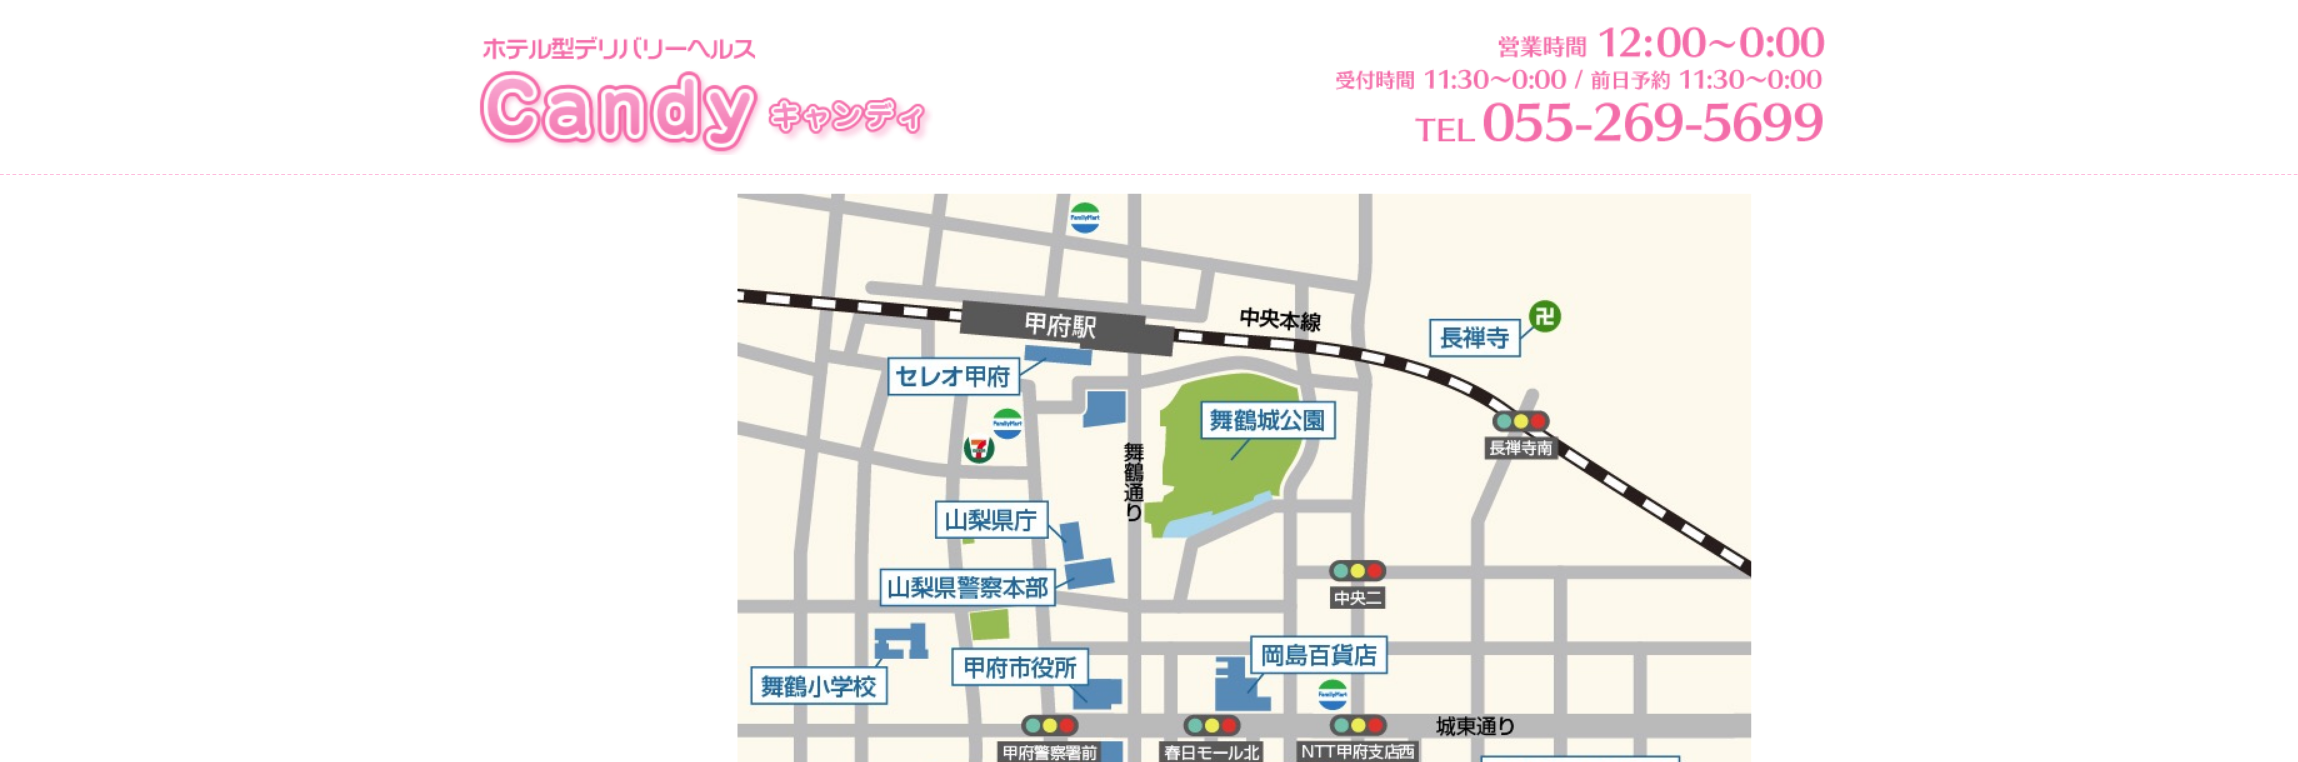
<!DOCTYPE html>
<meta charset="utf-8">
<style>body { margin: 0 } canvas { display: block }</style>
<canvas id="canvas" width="2298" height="762"></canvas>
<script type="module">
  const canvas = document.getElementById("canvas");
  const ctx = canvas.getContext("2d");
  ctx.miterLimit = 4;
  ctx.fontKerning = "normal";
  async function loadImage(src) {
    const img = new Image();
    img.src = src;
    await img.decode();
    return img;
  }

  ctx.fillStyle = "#ffffff";
  ctx.fillRect(0, 0, 2298, 762);
  ctx.beginPath();
  ctx.moveTo(0, 174.5);
  ctx.lineTo(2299, 174.5);
  ctx.strokeStyle = "#ffbbdd";
  ctx.lineWidth = 1.2;
  ctx.setLineDash([3.75, 2.5]);
  ctx.stroke();
  ctx.drawImage(await loadImage("img1.png"), 479, 36, 454, 119);
  ctx.drawImage(await loadImage("img2.png"), 1335, 26, 490, 117);
  ctx.drawImage(await loadImage("img3.png"), 737, 193, 1015, 569);
</script>
